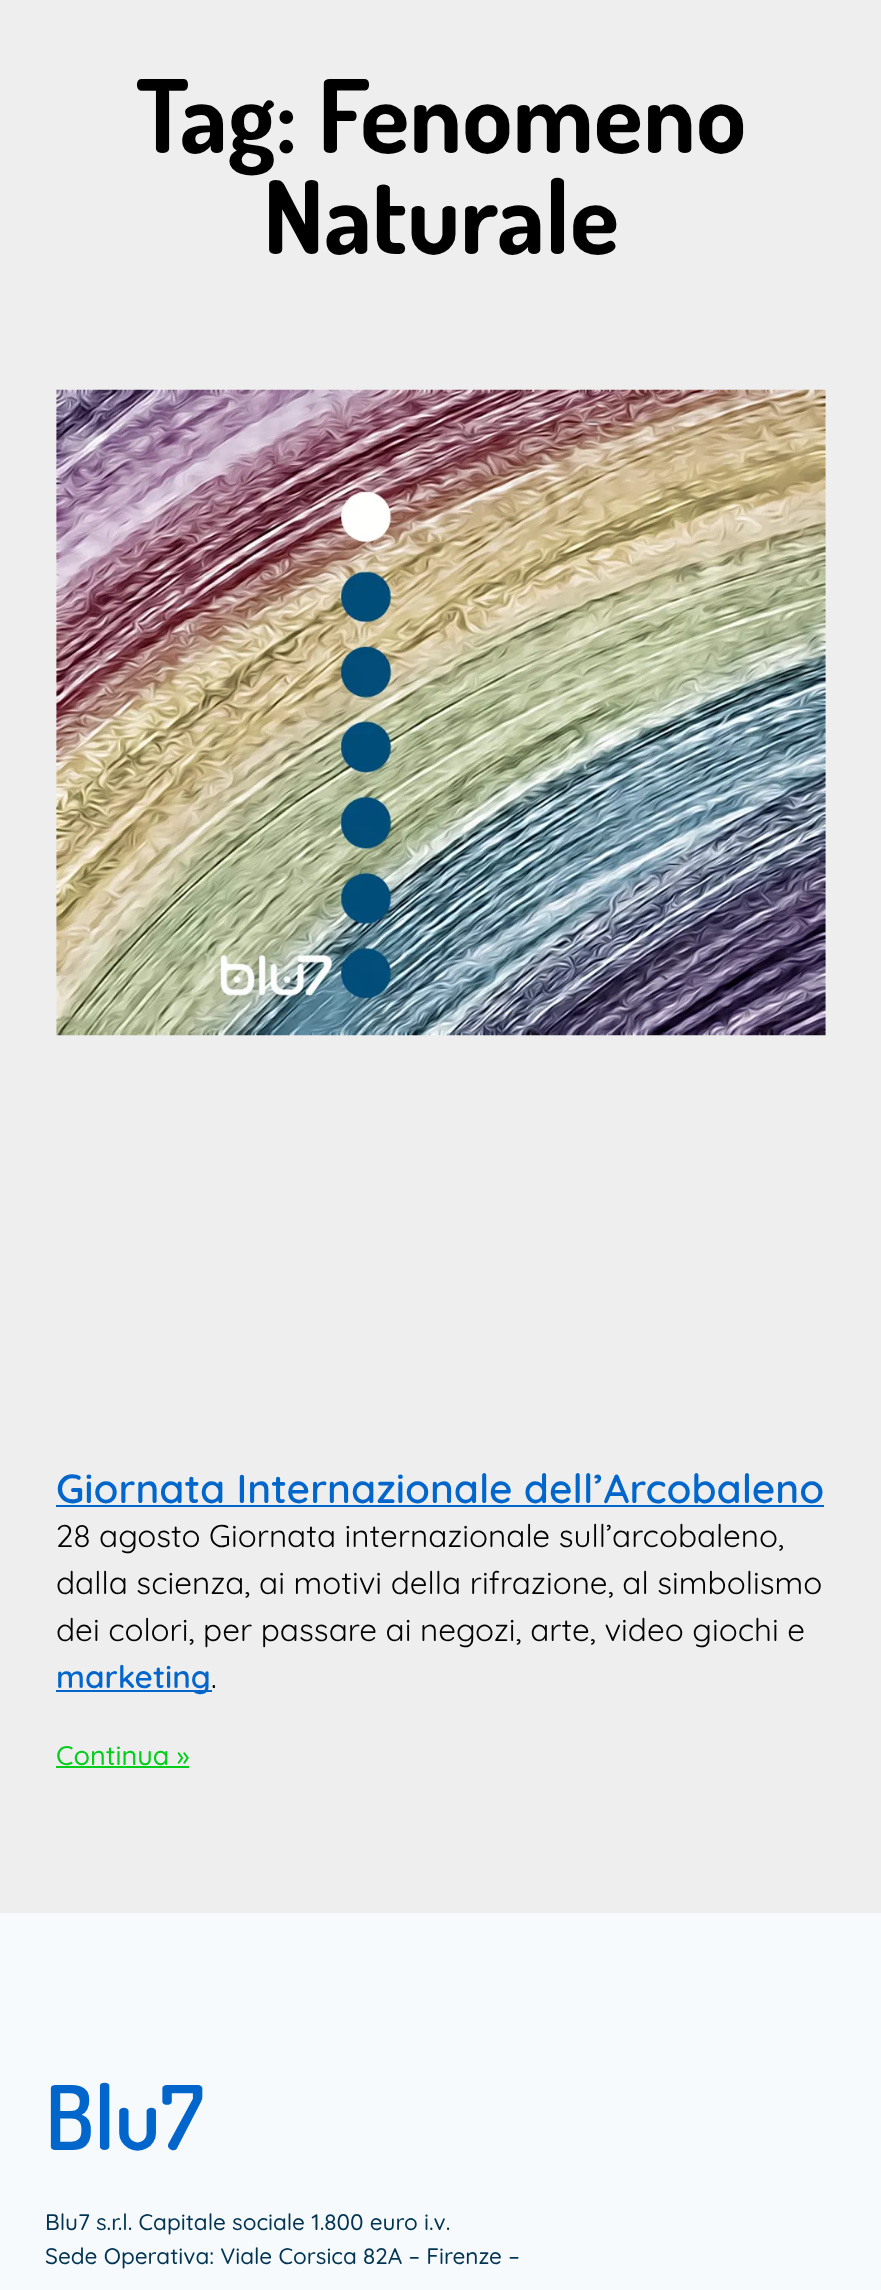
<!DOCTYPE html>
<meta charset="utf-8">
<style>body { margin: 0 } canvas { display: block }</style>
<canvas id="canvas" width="881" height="2290"></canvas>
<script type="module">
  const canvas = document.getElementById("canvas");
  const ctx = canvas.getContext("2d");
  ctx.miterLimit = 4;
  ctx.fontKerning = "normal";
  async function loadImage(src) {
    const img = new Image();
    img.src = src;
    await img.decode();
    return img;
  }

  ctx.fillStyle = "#eeeeee";
  ctx.fillRect(0, 0, 881, 2290);
  ctx.font = "bold 101.25px Dosis";
  ctx.fillStyle = "#000000";
  ctx.fillText("Tag: Fenomeno", 136, 153);
  ctx.fillText("Naturale", 263, 254);
  ctx.drawImage(await loadImage("img1.png"), 56, 389, 770, 647);
  ctx.font = "600 40.5px Quicksand";
  ctx.fillStyle = "#0066cc";
  ctx.fillText("Giornata Internazionale dell’Arcobaleno", 56, 1503);
  ctx.fillRect(56, 1505, 768, 2);
  ctx.font = "31.5px Quicksand";
  ctx.fillStyle = "#000000";
  ctx.fillText("28 agosto Giornata internazionale sull’arcobaleno,", 56, 1547);
  ctx.fillText("dalla scienza, ai motivi della rifrazione, al simbolismo", 56, 1594);
  ctx.fillText("dei colori, per passare ai negozi, arte, video giochi e", 56, 1641);
  ctx.fillStyle = "#0066cc";
  ctx.fillRect(56, 1690, 156, 2);
  ctx.font = "600 31.5px Quicksand";
  ctx.fillText("marketing", 56, 1688);
  ctx.font = "31.5px Quicksand";
  ctx.fillStyle = "#000000";
  ctx.fillText(".", 211, 1688);
  ctx.font = "500 27px Quicksand";
  ctx.fillStyle = "#00ce1b";
  ctx.fillText("Continua »", 56, 1765);
  ctx.fillRect(56, 1766, 133, 2);
  ctx.fillStyle = "#f7fafc";
  ctx.fillRect(0, 1913, 881, 377);
  ctx.font = "600 89px Dosis";
  ctx.fillStyle = "#0066cc";
  ctx.fillText("Blu7", 45, 2150);
  ctx.font = "500 22.5px Quicksand";
  ctx.fillStyle = "#003452";
  ctx.fillText("Blu7 s.r.l. Capitale sociale 1.800 euro i.v.", 45, 2230);
  ctx.fillText("Sede Operativa: Viale Corsica 82A – Firenze –", 45, 2264);
</script>
